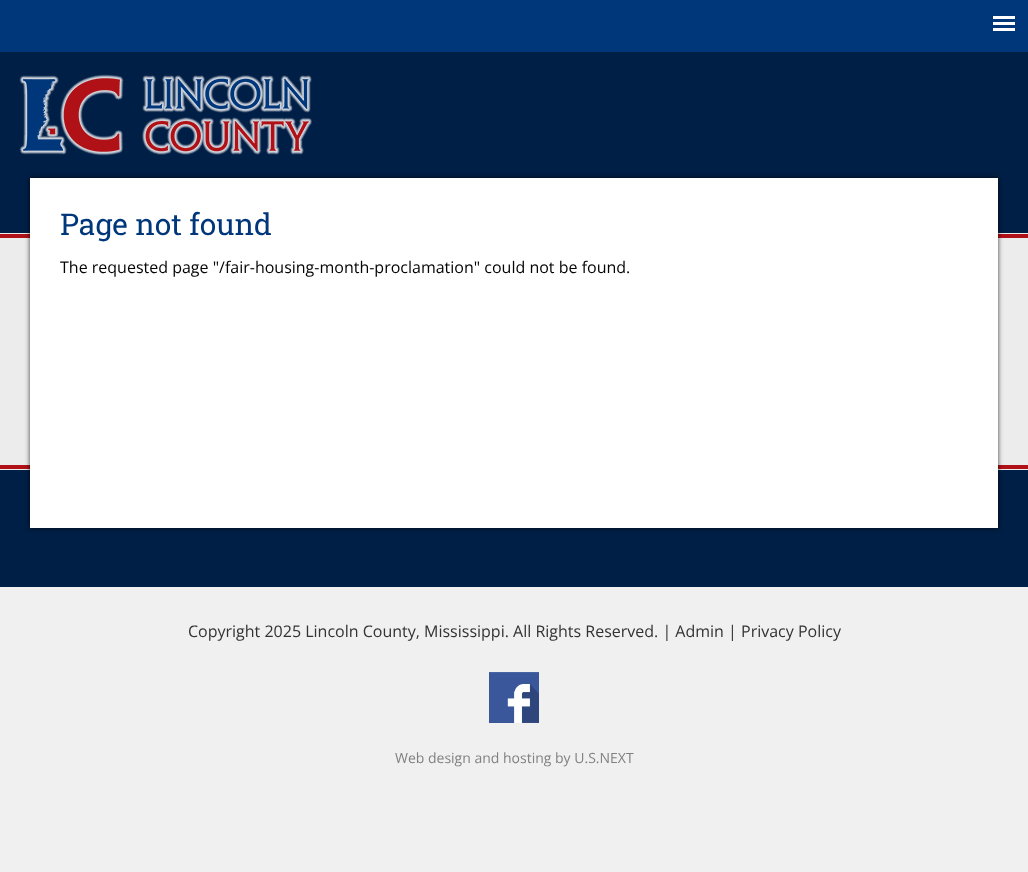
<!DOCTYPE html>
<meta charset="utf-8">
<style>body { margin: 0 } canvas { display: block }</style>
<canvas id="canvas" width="1028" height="872"></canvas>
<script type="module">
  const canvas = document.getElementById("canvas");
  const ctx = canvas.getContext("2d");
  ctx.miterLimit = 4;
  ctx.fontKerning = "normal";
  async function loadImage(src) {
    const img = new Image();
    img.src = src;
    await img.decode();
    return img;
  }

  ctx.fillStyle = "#f0f0f0";
  ctx.fillRect(0, 0, 1028, 872);
  ctx.fillStyle = "#00377b";
  ctx.fillRect(0, 0, 1028, 52);
  ctx.fillStyle = "#ffffff";
  ctx.fillRect(993, 16, 22, 3);
  ctx.fillRect(993, 22, 22, 3);
  ctx.fillRect(993, 28, 22, 3);
  ctx.fillStyle = "#001f46";
  ctx.fillRect(0, 52, 1028, 181);
  ctx.fillStyle = "#ececec";
  ctx.fillRect(0, 233, 1028, 1);
  ctx.drawImage(await loadImage("img1.png"), 19, 74, 293, 82);
  ctx.fillRect(0, 238, 1028, 227);
  ctx.fillStyle = "#b01116";
  ctx.fillRect(0, 234, 1028, 4);
  ctx.fillRect(0, 465, 1028, 4);
  ctx.fillStyle = "#001f46";
  ctx.fillRect(0, 470, 1028, 117);
  ctx.fillStyle = "#ececec";
  ctx.fillRect(0, 469, 1028, 1);
  ctx.fillStyle = "rgba(0, 0, 0, 0.75)";
  ctx.filter = "blur(2.5px)";
  ctx.beginPath();
  ctx.rect(30, 178, 968, 350);
  ctx.fill();
  ctx.filter = "none";
  ctx.fillStyle = "#ffffff";
  ctx.fillRect(30, 178, 968, 350);
  ctx.font = "30px Roboto Slab";
  ctx.fillStyle = "#00377b";
  ctx.fillText("Page not found", 60, 235);
  ctx.font = "16px Open Sans";
  ctx.fillStyle = "#040404";
  ctx.fillText("The requested page \"/fair-housing-month-proclamation\" could not be found.", 60, 273);
  ctx.fillStyle = "#333333";
  ctx.fillText("Copyright 2025 Lincoln County, Mississippi. All Rights Reserved. | Admin | Privacy Policy", 188, 637);
  ctx.drawImage(await loadImage("img2.png"), 489, 672, 50, 51);
  ctx.font = "14px Open Sans";
  ctx.fillStyle = "#818181";
  ctx.fillText("Web design and hosting by U.S.NEXT", 395, 763);
</script>
